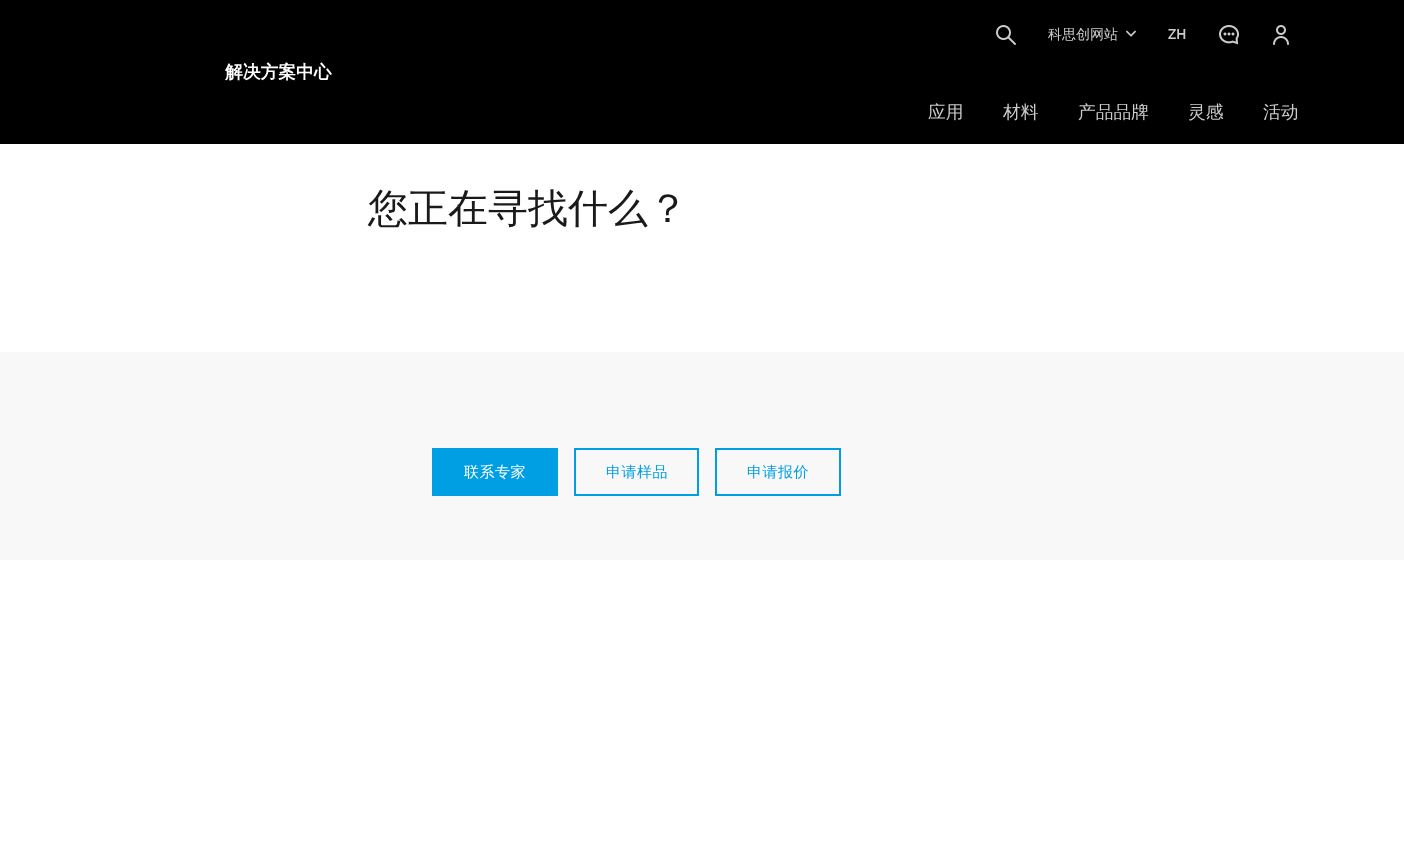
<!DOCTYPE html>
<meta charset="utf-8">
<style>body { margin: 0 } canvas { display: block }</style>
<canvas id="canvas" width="1404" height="849"></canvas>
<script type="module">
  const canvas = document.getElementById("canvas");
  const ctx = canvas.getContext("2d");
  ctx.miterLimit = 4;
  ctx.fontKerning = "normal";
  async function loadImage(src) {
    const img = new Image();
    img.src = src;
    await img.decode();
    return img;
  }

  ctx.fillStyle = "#ffffff";
  ctx.fillRect(0, 0, 1404, 849);
  ctx.fillStyle = "#000000";
  ctx.fillRect(0, 0, 1404, 144);
  ctx.font = "bold 17.75px WenQuanYi Zen Hei";
  ctx.fillStyle = "#ffffff";
  ctx.fillText("解决方案中心", 225, 78);
  ctx.drawImage(await loadImage("img1.png"), 996, 25, 20, 20);
  ctx.font = "500 14px WenQuanYi Zen Hei";
  ctx.fillStyle = "#cccccc";
  ctx.fillText("科思创网站", 1048, 39);
  ctx.drawImage(await loadImage("img2.png"), 1126, 30, 10, 7);
  ctx.font = "500 14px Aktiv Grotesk";
  ctx.fillText("ZH", 1168, 39);
  ctx.drawImage(await loadImage("img3.png"), 1219, 25, 20, 20);
  ctx.drawImage(await loadImage("img4.png"), 1273, 25, 16, 20);
  ctx.font = "500 17.75px WenQuanYi Zen Hei";
  ctx.fillText("应用", 928, 118);
  ctx.fillText("材料", 1003, 118);
  ctx.fillText("产品品牌", 1078, 118);
  ctx.fillText("灵感", 1188, 118);
  ctx.fillText("活动", 1263, 118);
  ctx.font = "500 40px WenQuanYi Zen Hei";
  ctx.fillStyle = "#1a1a1a";
  ctx.fillText("您正在寻找什么？", 368, 222);
  ctx.fillStyle = "#f8f8f8";
  ctx.fillRect(0, 352, 1404, 208);
  ctx.fillStyle = "#009fe4";
  ctx.fillRect(432, 448, 126, 48);
  ctx.letterSpacing = "0.5px";
  ctx.font = "500 15px WenQuanYi Zen Hei";
  ctx.fillStyle = "#ffffff";
  ctx.fillText("联系专家", 464, 477);
  ctx.strokeStyle = "#009fe4";
  ctx.lineWidth = 2;
  ctx.strokeRect(575, 449, 123, 46);
  ctx.fillStyle = "#009fe4";
  ctx.fillText("申请样品", 606, 477);
  ctx.strokeRect(716, 449, 124, 46);
  ctx.fillText("申请报价", 747, 477);
</script>
